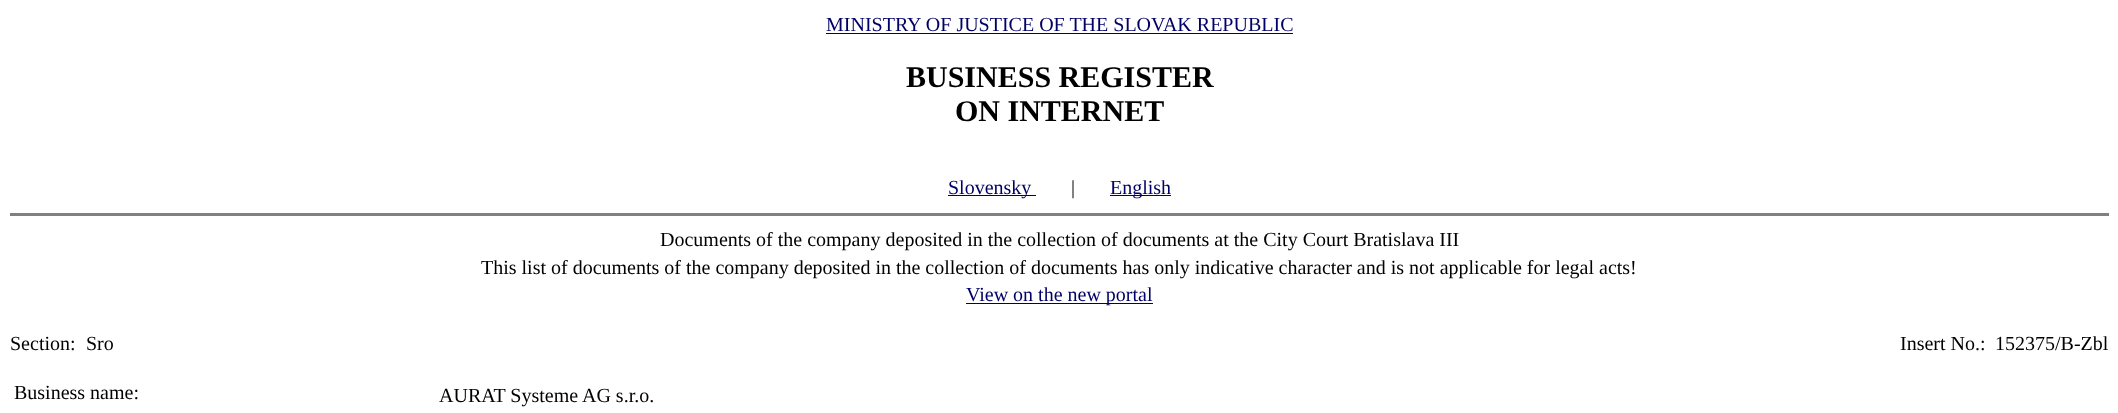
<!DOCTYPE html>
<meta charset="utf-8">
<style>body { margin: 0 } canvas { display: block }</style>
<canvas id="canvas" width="2118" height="413"></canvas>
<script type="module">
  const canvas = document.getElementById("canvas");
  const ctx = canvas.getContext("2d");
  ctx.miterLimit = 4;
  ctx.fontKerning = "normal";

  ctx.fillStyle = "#ffffff";
  ctx.fillRect(0, 0, 2118, 413);
  ctx.font = "20px Liberation Serif";
  ctx.fillStyle = "#000066";
  ctx.fillText("MINISTRY OF JUSTICE OF THE SLOVAK REPUBLIC", 826, 31);
  ctx.fillRect(826, 33, 467, 1);
  ctx.font = "bold 30px Liberation Serif";
  ctx.fillStyle = "#000000";
  ctx.fillText("BUSINESS REGISTER", 906, 87);
  ctx.fillText("ON INTERNET", 955, 121);
  ctx.fillStyle = "#000066";
  ctx.fillRect(948, 195, 88, 1);
  ctx.font = "20px Liberation Serif";
  ctx.fillText("Slovensky", 948, 194);
  ctx.fillStyle = "#000000";
  ctx.fillText("|", 1071, 194);
  ctx.fillStyle = "#000066";
  ctx.fillRect(1110, 195, 61, 1);
  ctx.fillText("English", 1110, 194);
  ctx.fillStyle = "#808080";
  ctx.fillRect(10, 213, 2099, 3);
  ctx.fillStyle = "#000000";
  ctx.fillText("Documents of the company deposited in the collection of documents at the City Court Bratislava III", 660, 246);
  ctx.fillText("This list of documents of the company deposited in the collection of documents has only indicative character and is not applicable for legal acts!", 481, 274);
  ctx.fillStyle = "#000066";
  ctx.fillRect(966, 303, 187, 1);
  ctx.fillText("View on the new portal", 966, 301);
  ctx.fillStyle = "#000000";
  ctx.fillText("Section:", 10, 350);
  ctx.fillText("Sro", 86, 350);
  ctx.fillText("Insert No.:", 1900, 350);
  ctx.fillText("152375/B-Zbl", 1995, 350);
  ctx.fillText("Business name:", 14, 399);
  ctx.fillText("AURAT Systeme AG s.r.o.", 439, 402);
</script>
